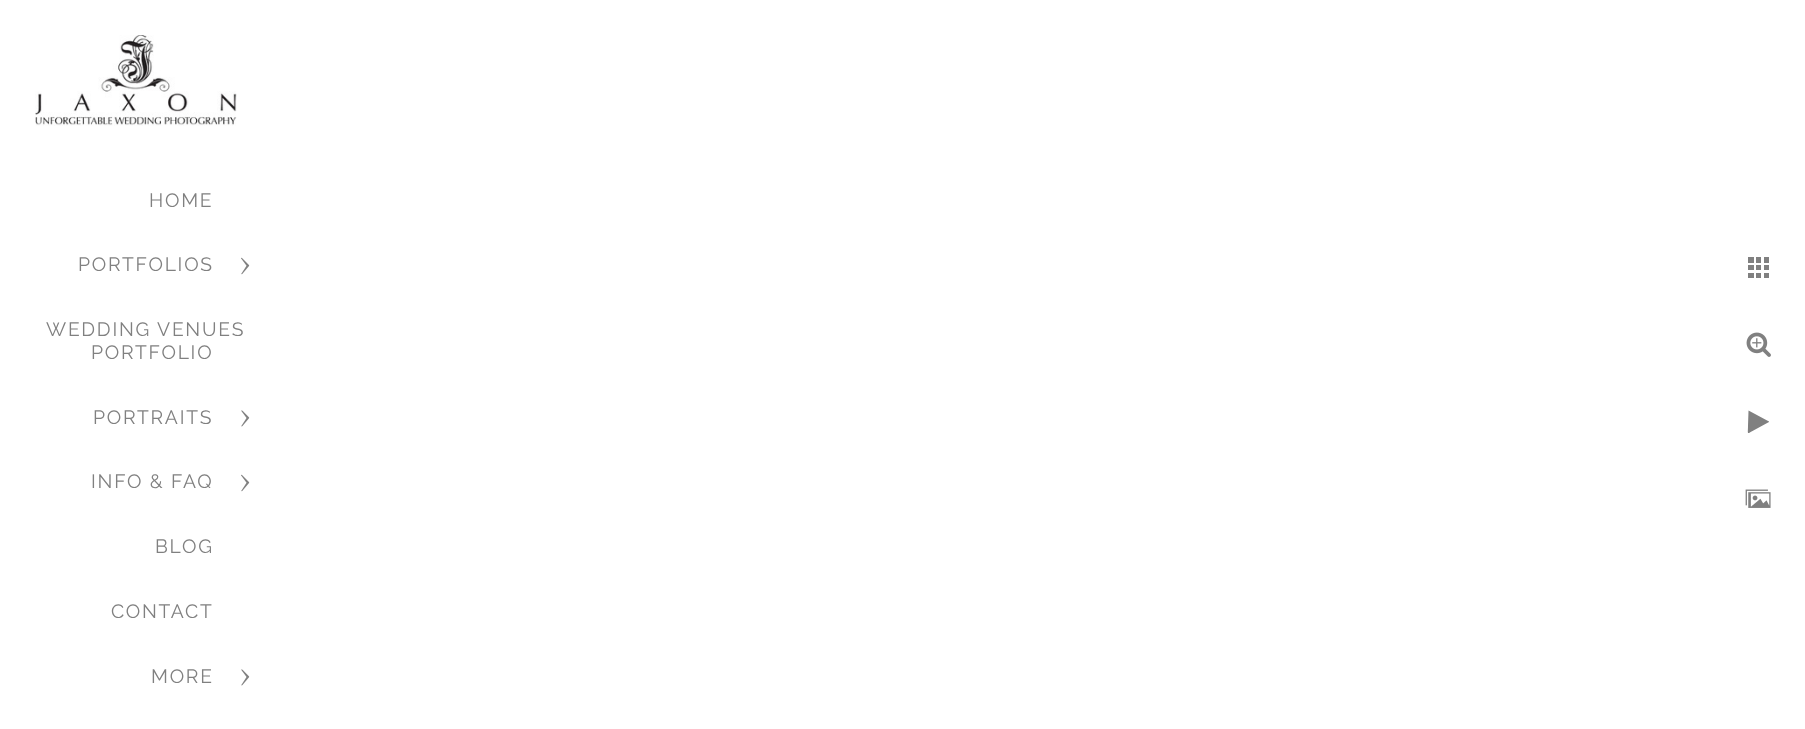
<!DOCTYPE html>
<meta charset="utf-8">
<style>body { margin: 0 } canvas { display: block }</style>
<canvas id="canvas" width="1805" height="729"></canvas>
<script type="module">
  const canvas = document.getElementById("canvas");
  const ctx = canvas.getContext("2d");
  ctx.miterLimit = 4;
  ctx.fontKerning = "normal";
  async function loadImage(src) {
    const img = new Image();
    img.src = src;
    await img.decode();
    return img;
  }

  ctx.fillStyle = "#ffffff";
  ctx.fillRect(0, 0, 1805, 729);
  ctx.drawImage(await loadImage("img1.png"), 35, 35, 202, 91);
  ctx.letterSpacing = "1.75px";
  ctx.font = "100 19.25px Raleway";
  ctx.fillStyle = "#808080";
  ctx.fillText("HOME", 149, 207);
  ctx.fillText("PORTFOLIOS", 78, 271);
  ctx.drawImage(await loadImage("img2.png"), 241, 257, 9, 18);
  ctx.fillText("WEDDING VENUES", 46, 336);
  ctx.fillText("PORTFOLIO", 91, 359);
  ctx.fillText("PORTRAITS", 93, 424);
  ctx.drawImage(await loadImage("img3.png"), 241, 410, 9, 17);
  ctx.fillText("INFO & FAQ", 91, 488);
  ctx.drawImage(await loadImage("img2.png"), 241, 474, 9, 18);
  ctx.fillText("BLOG", 155, 553);
  ctx.fillText("CONTACT", 111, 618);
  ctx.fillText("MORE", 151, 683);
  ctx.drawImage(await loadImage("img3.png"), 241, 669, 9, 17);
  ctx.drawImage(await loadImage("img4.png"), 1748, 257, 21, 21);
  ctx.drawImage(await loadImage("img5.png"), 1746, 332, 25, 25);
  ctx.beginPath();
  ctx.moveTo(1769, 422);
  ctx.lineTo(1752.5, 431);
  ctx.bezierCurveTo(1746.5, 434.5, 1748, 434, 1748, 425.5);
  ctx.lineTo(1748.5, 411);
  ctx.lineTo(1748.5, 410.5);
  ctx.lineTo(1769, 421.5);
  ctx.closePath();
  ctx.fill();
  ctx.drawImage(await loadImage("img6.png"), 1745, 489, 26, 19);
</script>
